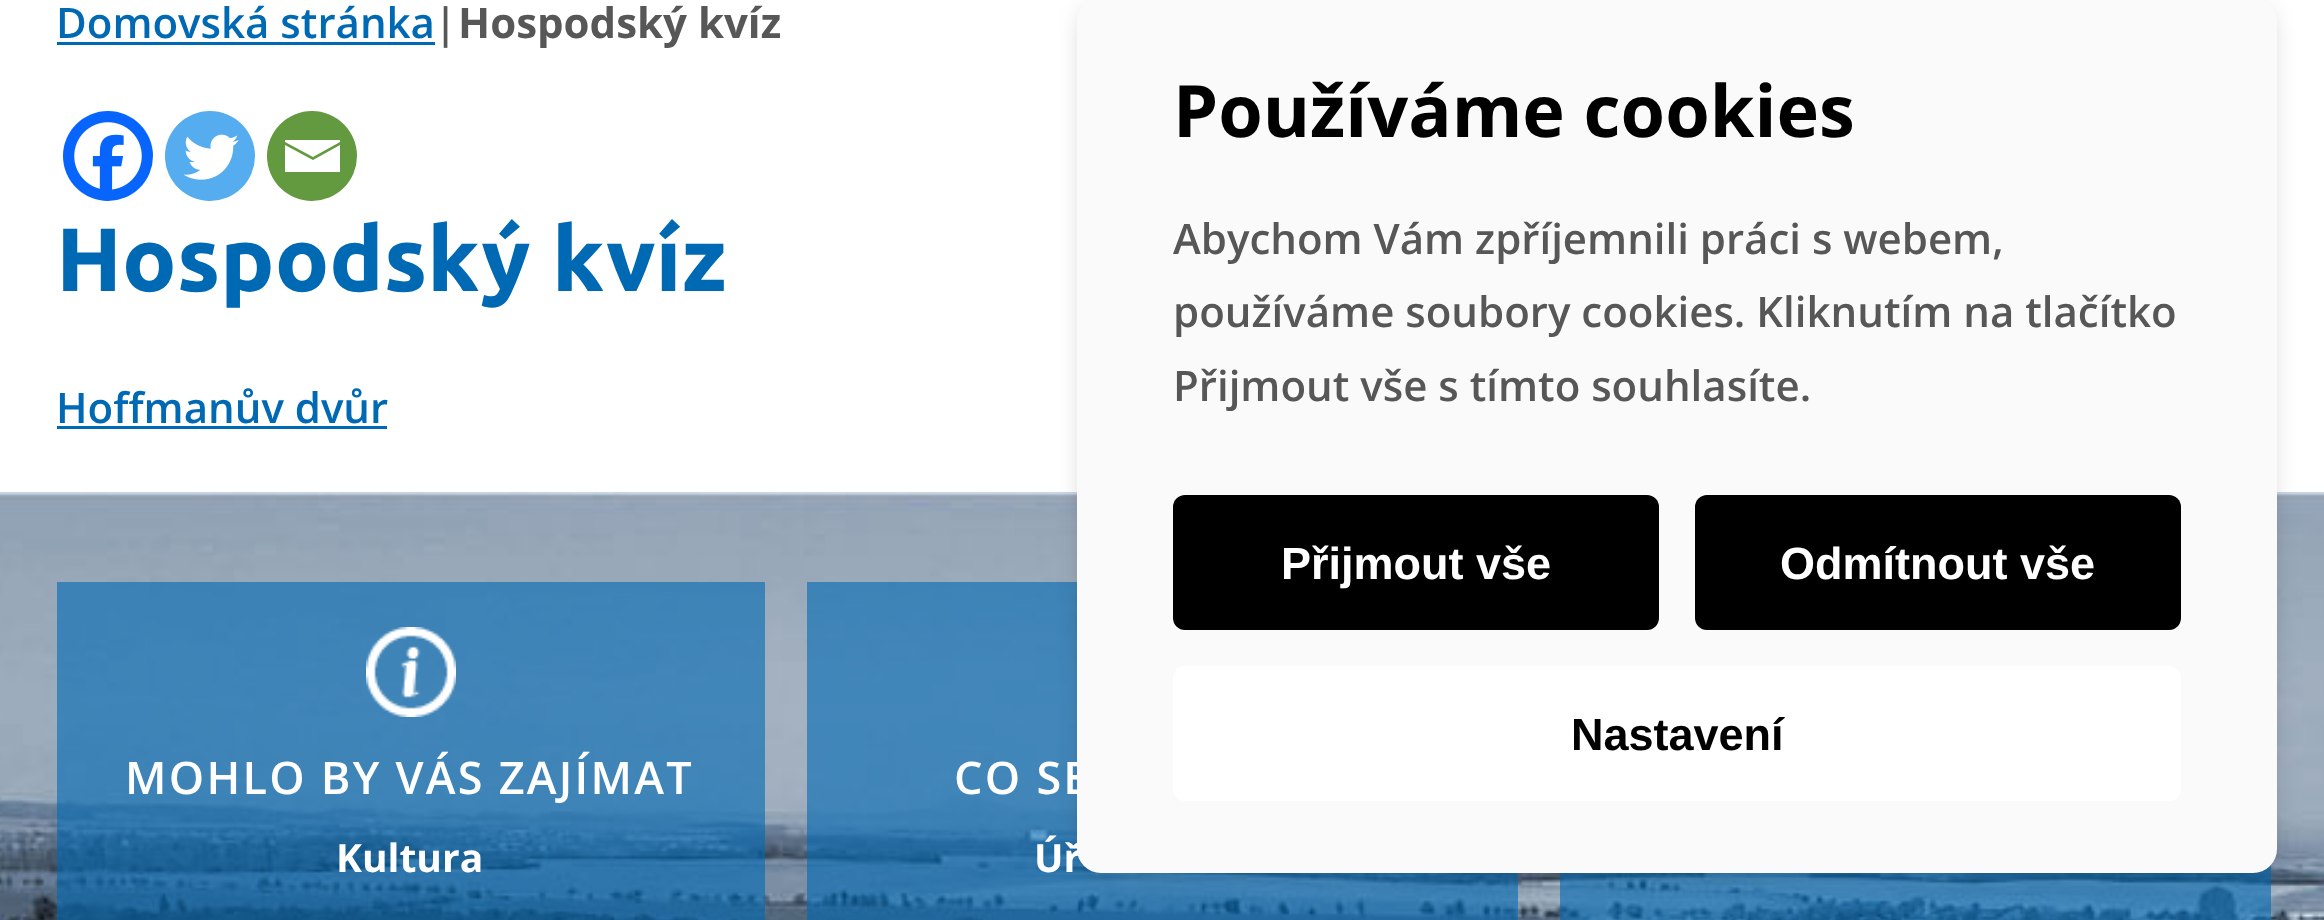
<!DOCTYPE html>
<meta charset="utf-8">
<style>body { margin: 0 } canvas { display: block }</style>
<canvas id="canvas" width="2324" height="920"></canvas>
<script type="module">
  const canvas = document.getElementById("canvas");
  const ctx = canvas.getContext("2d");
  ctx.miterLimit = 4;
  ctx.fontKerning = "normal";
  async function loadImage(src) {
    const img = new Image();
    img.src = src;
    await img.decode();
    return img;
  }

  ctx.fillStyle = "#ffffff";
  ctx.fillRect(0, 0, 2324, 920);
  ctx.font = "600 42px Open Sans";
  ctx.fillStyle = "#0069b4";
  ctx.fillText("Domovská stránka", 56, 38);
  ctx.fillRect(57, 42, 378, 3);
  ctx.fillStyle = "#575757";
  ctx.fillText("|", 434, 38);
  ctx.font = "bold 42px Open Sans";
  ctx.fillText("Hospodský kvíz", 458, 38);
  ctx.fillStyle = "#0765fe";
  ctx.beginPath();
  ctx.arc(108, 156, 45, 0, Math.PI * 2);
  ctx.fill();
  ctx.drawImage(await loadImage("img1.png"), 74, 122, 68, 68);
  ctx.fillStyle = "#55acee";
  ctx.beginPath();
  ctx.arc(210, 156, 45, 0, Math.PI * 2);
  ctx.fill();
  ctx.drawImage(await loadImage("img2.png"), 183, 134, 56, 46);
  ctx.fillStyle = "#649a3f";
  ctx.beginPath();
  ctx.arc(312, 156, 45, 0, Math.PI * 2);
  ctx.fill();
  ctx.fillStyle = "#ffffff";
  ctx.beginPath();
  ctx.moveTo(283, 140);
  ctx.lineTo(340, 140);
  ctx.lineTo(340, 142);
  ctx.lineTo(313, 157);
  ctx.lineTo(285, 142);
  ctx.lineTo(285, 140);
  ctx.moveTo(285, 145);
  ctx.lineTo(313, 160);
  ctx.lineTo(340, 145);
  ctx.lineTo(340, 172);
  ctx.lineTo(285, 172);
  ctx.lineTo(285, 145);
  ctx.fill();
  ctx.font = "bold 90px Ubuntu";
  ctx.fillStyle = "#0069b4";
  ctx.fillText("Hospodský kvíz", 56, 291);
  ctx.font = "600 42px Open Sans";
  ctx.fillText("Hoffmanův dvůr", 56, 423);
  ctx.fillRect(57, 426, 330, 3);
  ctx.drawImage(await loadImage("img3.png"), 0, 492, 2324, 428);
  ctx.fillStyle = "rgba(0, 105, 180, 0.6)";
  ctx.fillRect(807, 582, 711, 338);
  ctx.fillRect(1560, 864, 711, 56);
  ctx.fillStyle = "rgba(0, 0, 0, 0.2)";
  ctx.filter = "blur(12px)";
  ctx.beginPath();
  ctx.roundRect(1083, 9, 1188, 864, 18);
  ctx.fill();
  ctx.filter = "none";
  ctx.letterSpacing = "2.25px";
  ctx.font = "600 45px Open Sans";
  ctx.fillStyle = "#ffffff";
  ctx.fillText("CO SE", 954, 794);
  ctx.letterSpacing = "0px";
  ctx.font = "bold 39px Open Sans";
  ctx.fillText("Úř", 1034, 872);
  ctx.fillStyle = "#fafafa";
  ctx.beginPath();
  ctx.roundRect(1077, -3, 1200, 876, 24);
  ctx.fill();
  ctx.font = "bold 72px Open Sans";
  ctx.fillStyle = "#000000";
  ctx.fillText("Používáme cookies", 1173, 137);
  ctx.font = "600 42px Open Sans";
  ctx.fillStyle = "#575757";
  ctx.fillText("Abychom Vám zpříjemnili práci s webem,", 1173, 254);
  ctx.fillText("používáme soubory cookies. Kliknutím na tlačítko", 1173, 327);
  ctx.fillText("Přijmout vše s tímto souhlasíte.", 1173, 401);
  ctx.fillStyle = "#000000";
  ctx.beginPath();
  ctx.roundRect(1173, 495, 486, 135, 12);
  ctx.fill();
  ctx.font = "bold 45px Liberation Sans";
  ctx.fillStyle = "#ffffff";
  ctx.fillText("Přijmout vše", 1281, 579);
  ctx.fillStyle = "#000000";
  ctx.beginPath();
  ctx.roundRect(1695, 495, 486, 135, 12);
  ctx.fill();
  ctx.fillStyle = "#ffffff";
  ctx.fillText("Odmítnout vše", 1780, 579);
  ctx.beginPath();
  ctx.roundRect(1173, 666, 1008, 135, 12);
  ctx.fill();
  ctx.fillStyle = "#000000";
  ctx.fillText("Nastavení", 1571, 750);
  ctx.fillStyle = "rgba(0, 105, 180, 0.6)";
  ctx.fillRect(57, 582, 708, 338);
  ctx.drawImage(await loadImage("img4.png"), 366, 627, 90, 90);
  ctx.letterSpacing = "2.25px";
  ctx.font = "600 45px Open Sans";
  ctx.fillStyle = "#ffffff";
  ctx.fillText("MOHLO BY VÁS ZAJÍMAT", 125, 794);
  ctx.letterSpacing = "0px";
  ctx.font = "bold 39px Open Sans";
  ctx.fillText("Kultura", 336, 872);
</script>
